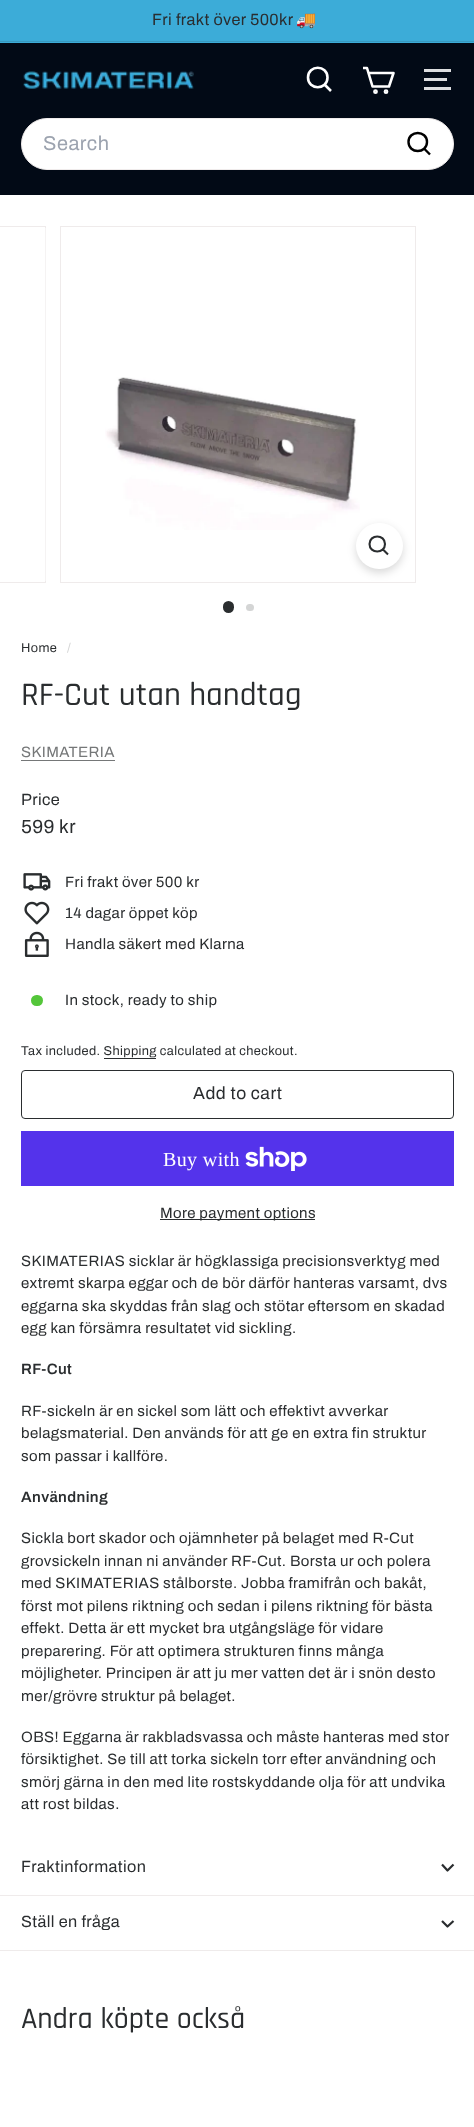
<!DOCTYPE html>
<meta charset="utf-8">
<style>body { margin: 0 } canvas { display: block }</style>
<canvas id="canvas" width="474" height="2127"></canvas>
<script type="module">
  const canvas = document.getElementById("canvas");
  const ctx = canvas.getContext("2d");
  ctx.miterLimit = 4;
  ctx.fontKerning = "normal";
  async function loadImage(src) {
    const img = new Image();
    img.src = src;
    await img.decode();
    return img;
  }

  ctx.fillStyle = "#ffffff";
  ctx.fillRect(0, 0, 474, 2127);
  ctx.fillStyle = "#3cacd8";
  ctx.fillRect(0, 0, 474, 43);
  ctx.letterSpacing = "0.38px";
  ctx.font = "16.25px Archivo";
  ctx.fillStyle = "#2a2d2f";
  ctx.fillText("Fri frakt över 500kr", 152, 25);
  ctx.font = "16.25px Noto Color Emoji";
  ctx.fillText("🚚", 296, 25);
  ctx.fillStyle = "#3999bf";
  ctx.fillRect(0, 41, 474, 1);
  ctx.fillStyle = "#020a16";
  ctx.fillRect(0, 43, 474, 152);
  ctx.drawImage(await loadImage("img1.png"), 23, 71, 171, 18);
  ctx.beginPath();
  ctx.moveTo(327.5, 77.5);
  ctx.bezierCurveTo(327.5, 90.5, 308, 90.5, 308, 77.5);
  ctx.bezierCurveTo(308, 64.5, 327.5, 64.5, 327.5, 77.5);
  ctx.moveTo(331, 91);
  ctx.lineTo(324.5, 84.5);
  ctx.strokeStyle = "#ffffff";
  ctx.lineWidth = 2.6;
  ctx.lineJoin = "round";
  ctx.stroke();
  ctx.beginPath();
  ctx.moveTo(368.5, 73);
  ctx.lineTo(393.5, 73);
  ctx.lineTo(389, 86.5);
  ctx.lineTo(372.5, 86.5);
  ctx.lineTo(367, 68);
  ctx.lineTo(363, 68);
  ctx.stroke();
  ctx.beginPath();
  ctx.arc(375.5, 91.7, 1.1, 0, Math.PI * 2);
  ctx.stroke();
  ctx.beginPath();
  ctx.arc(386, 91.7, 1.1, 0, Math.PI * 2);
  ctx.stroke();
  ctx.fillStyle = "#dddee0";
  ctx.fillRect(424, 69, 27, 3);
  ctx.fillRect(424, 78, 23, 3);
  ctx.fillRect(424, 87, 27, 3);
  ctx.fillStyle = "#ffffff";
  ctx.beginPath();
  ctx.roundRect(21.5, 118.5, 432, 51, 25.5);
  ctx.fill();
  ctx.strokeStyle = "#efebeb";
  ctx.lineWidth = 1;
  ctx.lineJoin = "miter";
  ctx.stroke();
  ctx.letterSpacing = "0.5px";
  ctx.font = "20px Archivo";
  ctx.fillStyle = "#9ca3af";
  ctx.fillText("Search", 43, 150);
  ctx.beginPath();
  ctx.moveTo(427, 142);
  ctx.bezierCurveTo(427, 154, 408.5, 154, 408.5, 142);
  ctx.bezierCurveTo(408.5, 130, 427, 130, 427, 142);
  ctx.moveTo(430, 154.5);
  ctx.lineTo(424, 148.5);
  ctx.strokeStyle = "#000000";
  ctx.lineWidth = 2.4;
  ctx.lineJoin = "round";
  ctx.stroke();
  ctx.strokeStyle = "#efebeb";
  ctx.lineWidth = 1;
  ctx.lineJoin = "miter";
  ctx.strokeRect(-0.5, 226.5, 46, 356);
  ctx.fillStyle = "#f5f3f3";
  ctx.fillRect(45, 228, 1, 353);
  ctx.strokeRect(60.5, 226.5, 355, 356);
  ctx.drawImage(await loadImage("img2.png"), 105, 377, 255, 153);
  ctx.fillStyle = "rgba(0, 0, 0, 0.15)";
  ctx.filter = "blur(4px)";
  ctx.beginPath();
  ctx.roundRect(356, 526, 47, 47, 23.5);
  ctx.fill();
  ctx.filter = "none";
  ctx.fillStyle = "#ffffff";
  ctx.beginPath();
  ctx.roundRect(356, 523, 47, 46, 23);
  ctx.fill();
  ctx.beginPath();
  ctx.moveTo(385, 544);
  ctx.bezierCurveTo(385, 554, 369.5, 554, 369.5, 544);
  ctx.bezierCurveTo(369.5, 534, 385, 534, 385, 544);
  ctx.moveTo(388, 554.5);
  ctx.lineTo(383, 549.5);
  ctx.strokeStyle = "#2a2d2f";
  ctx.lineWidth = 2.1;
  ctx.lineJoin = "round";
  ctx.stroke();
  ctx.fillStyle = "#2a2d2f";
  ctx.beginPath();
  ctx.roundRect(223, 601, 11, 12, 5.5);
  ctx.fill();
  ctx.fillStyle = "#d4d5d5";
  ctx.beginPath();
  ctx.roundRect(246, 604, 8, 7, 3.5);
  ctx.fill();
  ctx.letterSpacing = "0.38px";
  ctx.font = "12.75px Archivo";
  ctx.fillStyle = "#2a2d2f";
  ctx.fillText("Home", 21, 652);
  ctx.fillStyle = "#d4d5d5";
  ctx.fillText("/", 67, 652);
  ctx.letterSpacing = "0px";
  ctx.font = "500 33px Rajdhani";
  ctx.fillStyle = "#2a2d2f";
  ctx.fillText("RF-Cut utan handtag", 21, 705);
  ctx.letterSpacing = "0.38px";
  ctx.font = "15px Archivo";
  ctx.fillStyle = "#757778";
  ctx.fillText("SKIMATERIA", 21, 757);
  ctx.fillRect(21, 760, 94, 1);
  ctx.font = "16.25px Archivo";
  ctx.fillStyle = "#2a2d2f";
  ctx.fillText("Price", 21, 805);
  ctx.font = "19px Archivo";
  ctx.fillText("599 kr", 21, 833);
  ctx.drawImage(await loadImage("img3.png"), 23, 873, 28, 18);
  ctx.font = "15px Archivo";
  ctx.fillText("Fri frakt över 500 kr", 65, 887);
  ctx.drawImage(await loadImage("img4.png"), 24, 901, 26, 24);
  ctx.fillText("14 dagar öppet köp", 65, 918);
  ctx.drawImage(await loadImage("img5.png"), 24, 931, 25, 26);
  ctx.fillText("Handla säkert med Klarna", 65, 949);
  ctx.fillStyle = "#54c63a";
  ctx.beginPath();
  ctx.roundRect(31, 995, 12, 11, 5.5);
  ctx.fill();
  ctx.fillStyle = "#2a2d2f";
  ctx.fillText("In stock, ready to ship", 65, 1005);
  ctx.font = "12.75px Archivo";
  ctx.fillText("Tax included. Shipping calculated at checkout.", 21, 1055);
  ctx.fillRect(104, 1058, 52, 1);
  ctx.beginPath();
  ctx.roundRect(21.5, 1070.5, 432, 48, 3.5);
  ctx.lineWidth = 1;
  ctx.lineJoin = "miter";
  ctx.stroke();
  ctx.letterSpacing = "0.5px";
  ctx.font = "17.5px Archivo";
  ctx.fillText("Add to cart", 193, 1099);
  ctx.fillStyle = "#5433eb";
  ctx.fillRect(21, 1131, 433, 55);
  ctx.letterSpacing = "0.38px";
  ctx.font = "20px Liberation Serif";
  ctx.fillStyle = "#ffffff";
  ctx.fillText("Buy with", 163, 1166);
  ctx.drawImage(await loadImage("img6.png"), 245, 1146, 62, 25);
  ctx.fillStyle = "#2a2d2f";
  ctx.fillRect(160, 1219, 155, 1);
  ctx.font = "15px Archivo";
  ctx.fillText("More payment options", 160, 1218);
  ctx.fillText("SKIMATERIAS sicklar är högklassiga precisionsverktyg med", 21, 1266);
  ctx.fillText("extremt skarpa eggar och de bör därför hanteras varsamt, dvs", 21, 1288);
  ctx.fillText("eggarna ska skyddas från slag och stötar eftersom en skadad", 21, 1311);
  ctx.fillText("egg kan försämra resultatet vid sickling.", 21, 1333);
  ctx.font = "600 15px Archivo";
  ctx.fillText("RF-Cut", 21, 1374);
  ctx.font = "15px Archivo";
  ctx.fillText("RF-sickeln är en sickel som lätt och effektivt avverkar", 21, 1416);
  ctx.fillText("belagsmaterial. Den används för att ge en extra fin struktur", 21, 1438);
  ctx.fillText("som passar i kallföre.", 21, 1461);
  ctx.font = "600 15px Archivo";
  ctx.fillText("Användning", 21, 1502);
  ctx.font = "15px Archivo";
  ctx.fillText("Sickla bort skador och ojämnheter på belaget med R-Cut", 21, 1543);
  ctx.fillText("grovsickeln innan ni använder RF-Cut. Borsta ur och polera", 21, 1566);
  ctx.fillText("med SKIMATERIAS stålborste. Jobba framifrån och bakåt,", 21, 1588);
  ctx.fillText("först mot pilens riktning och sedan i pilens riktning för bästa", 21, 1611);
  ctx.fillText("effekt. Detta är ett mycket bra utgångsläge för vidare", 21, 1633);
  ctx.fillText("preparering. För att optimera strukturen finns många", 21, 1656);
  ctx.fillText("möjligheter. Principen är att ju mer vatten det är i snön desto", 21, 1678);
  ctx.fillText("mer/grövre struktur på belaget.", 21, 1701);
  ctx.fillText("OBS! Eggarna är rakbladsvassa och måste hanteras med stor", 21, 1742);
  ctx.fillText("försiktighet. Se till att torka sickeln torr efter användning och", 21, 1764);
  ctx.fillText("smörj gärna in den med lite rostskyddande olja för att undvika", 21, 1787);
  ctx.fillText("att rost bildas.", 21, 1809);
  ctx.fillStyle = "#efebeb";
  ctx.fillRect(0, 1895, 474, 1);
  ctx.letterSpacing = "0.4px";
  ctx.font = "16.25px Archivo";
  ctx.fillStyle = "#2a2d2f";
  ctx.fillText("Fraktinformation", 21, 1872);
  ctx.beginPath();
  ctx.moveTo(442, 1864.5);
  ctx.lineTo(447.5, 1870.5);
  ctx.lineTo(453.5, 1864.5);
  ctx.lineWidth = 2.2;
  ctx.lineJoin = "round";
  ctx.stroke();
  ctx.fillStyle = "#efebeb";
  ctx.fillRect(0, 1950, 474, 1);
  ctx.fillStyle = "#2a2d2f";
  ctx.fillText("Ställ en fråga", 21, 1927);
  ctx.beginPath();
  ctx.moveTo(442, 1921);
  ctx.lineTo(447.5, 1926.5);
  ctx.lineTo(453.5, 1921);
  ctx.stroke();
  ctx.letterSpacing = "0px";
  ctx.font = "500 30px Rajdhani";
  ctx.fillText("Andra köpte också", 21, 2028);
</script>
